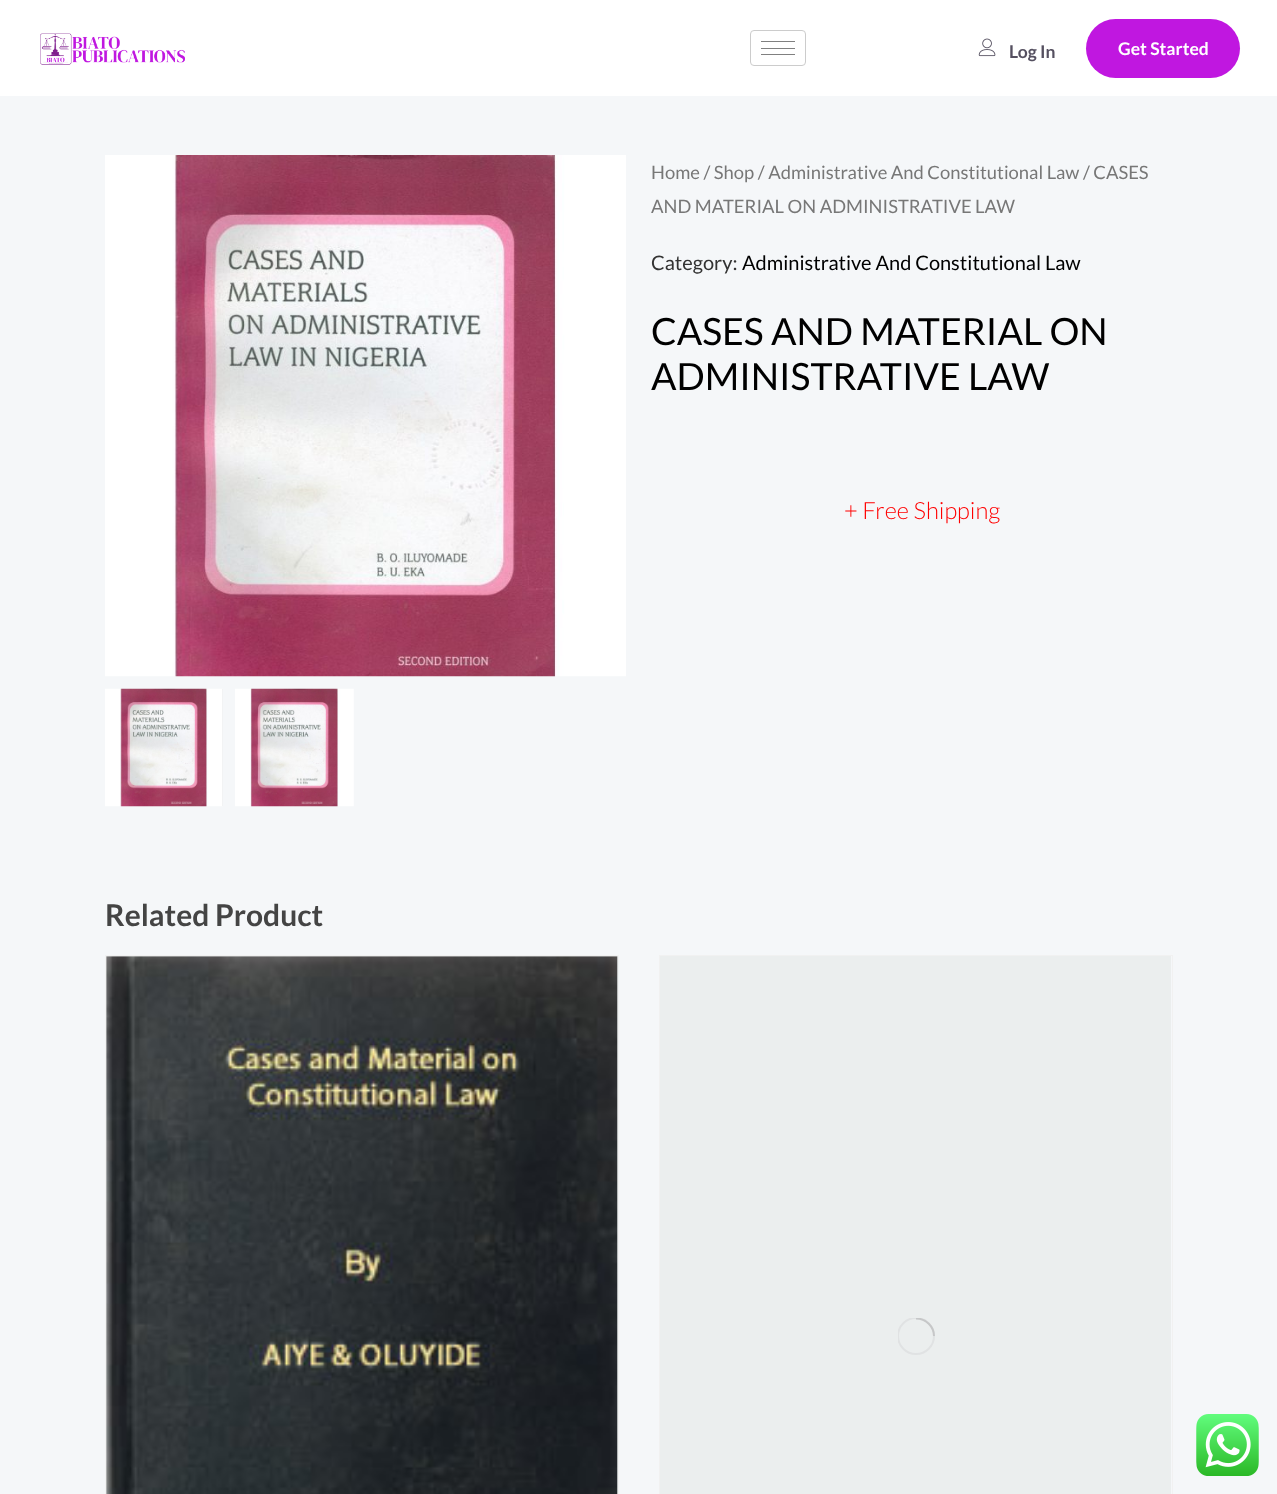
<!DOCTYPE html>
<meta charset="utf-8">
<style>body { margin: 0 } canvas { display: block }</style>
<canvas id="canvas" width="1277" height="1494"></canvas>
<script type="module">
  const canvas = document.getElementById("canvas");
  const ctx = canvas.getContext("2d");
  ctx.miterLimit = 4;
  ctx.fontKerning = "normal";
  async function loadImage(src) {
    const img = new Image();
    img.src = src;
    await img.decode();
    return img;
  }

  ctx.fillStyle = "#f5f7f9";
  ctx.fillRect(0, 0, 1277, 1494);
  ctx.fillStyle = "#ffffff";
  ctx.fillRect(0, 0, 1277, 96);
  ctx.drawImage(await loadImage("img1.png"), 40, 33, 145, 32);
  ctx.beginPath();
  ctx.roundRect(750.5, 30.5, 55, 35, 3.5);
  ctx.strokeStyle = "#cccccc";
  ctx.stroke();
  ctx.fillStyle = "#808080";
  ctx.fillRect(761, 41, 34, 1);
  ctx.fillRect(761, 48, 34, 1);
  ctx.fillRect(761, 54, 34, 1);
  ctx.drawImage(await loadImage("img2.png"), 978, 38, 18, 19);
  ctx.font = "bold 17.5px Lato";
  ctx.fillStyle = "#555060";
  ctx.fillText("Log In", 1009, 58);
  ctx.fillStyle = "#c017e0";
  ctx.beginPath();
  ctx.roundRect(1086, 19, 154, 59, 29.5);
  ctx.fill();
  ctx.fillStyle = "#ffffff";
  ctx.fillText("Get Started", 1118, 55);
  ctx.drawImage(await loadImage("img3.png"), 105, 155, 521, 522);
  ctx.fillStyle = "#e5e7e9";
  ctx.fillRect(222, 689, 1, 117);
  ctx.drawImage(await loadImage("img4.png"), 105, 688, 118, 119);
  ctx.drawImage(await loadImage("img5.png"), 235, 688, 119, 119);
  ctx.font = "18.4px Lato";
  ctx.fillStyle = "#777777";
  ctx.fillText("Home / Shop / Administrative And Constitutional Law / CASES", 651, 179);
  ctx.fillText("AND MATERIAL ON ADMINISTRATIVE LAW", 651, 213);
  ctx.font = "20px Lato";
  ctx.fillStyle = "#333333";
  ctx.fillText("Category:", 651, 270);
  ctx.fillStyle = "#000000";
  ctx.fillText("Administrative And Constitutional Law", 742, 270);
  ctx.font = "37.5px Lato";
  ctx.fillText("CASES AND MATERIAL ON", 651, 345);
  ctx.fillText("ADMINISTRATIVE LAW", 651, 390);
  ctx.font = "300 23.75px Lato";
  ctx.fillStyle = "#ff0000";
  ctx.fillText("+ Free Shipping", 844, 519);
  ctx.font = "bold 30px Lato";
  ctx.fillStyle = "#444444";
  ctx.fillText("Related Product", 105, 926);
  ctx.strokeStyle = "#f1f1f1";
  ctx.strokeRect(105.5, 955.5, 513, 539);
  ctx.fillStyle = "#e5e8e8";
  ctx.fillRect(106, 956, 512, 538);
  ctx.drawImage(await loadImage("img6.png"), 106, 956, 512, 538);
  ctx.strokeRect(659.5, 955.5, 513, 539);
  ctx.fillStyle = "#ebeeee";
  ctx.fillRect(660, 956, 511, 538);
  ctx.save();
  ctx.beginPath();
  ctx.rect(898, 1318, 37, 37);
  ctx.clip();
  ctx.beginPath();
  ctx.arc(916, 1336, 18, 0, Math.PI * 2);
  ctx.strokeStyle = "#e0e2e3";
  ctx.lineWidth = 2;
  ctx.stroke();
  ctx.beginPath();
  ctx.moveTo(934, 1336);
  ctx.bezierCurveTo(934, 1326.5, 926, 1318.5, 916, 1318.5);
  ctx.strokeStyle = "#c6c7c8";
  ctx.stroke();
  ctx.restore();
  ctx.drawImage(await loadImage("img7.png"), 1196, 1414, 63, 62);
</script>
